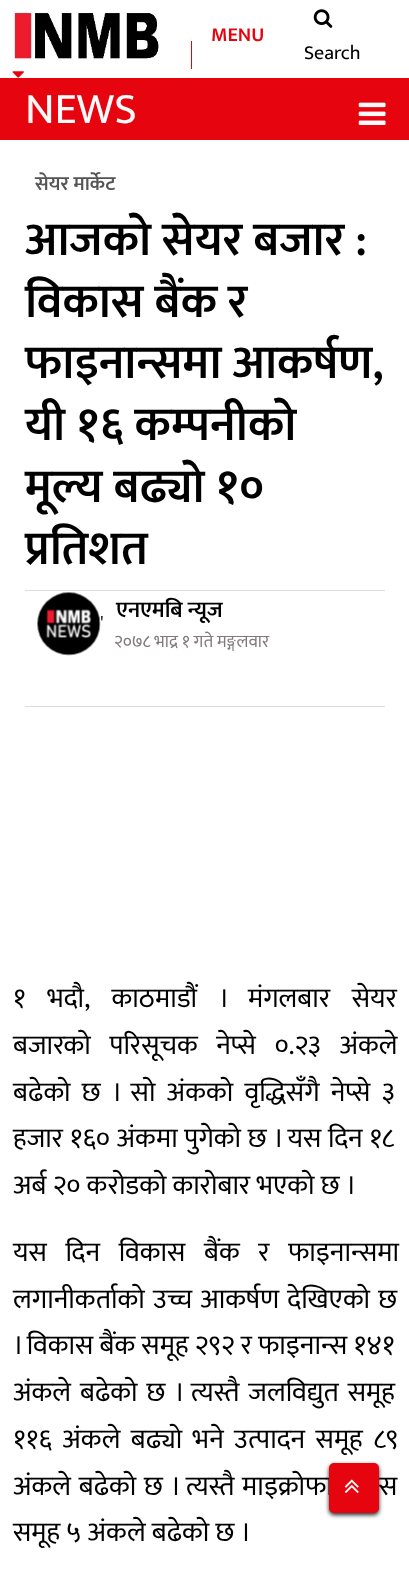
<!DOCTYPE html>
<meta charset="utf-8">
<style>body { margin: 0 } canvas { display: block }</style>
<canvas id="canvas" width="409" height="1574"></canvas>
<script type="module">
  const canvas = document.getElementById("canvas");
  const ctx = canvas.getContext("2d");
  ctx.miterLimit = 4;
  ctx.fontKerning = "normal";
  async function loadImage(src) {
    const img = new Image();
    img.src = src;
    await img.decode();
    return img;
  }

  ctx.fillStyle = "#ffffff";
  ctx.fillRect(0, 0, 409, 1574);
  ctx.drawImage(await loadImage("img1.png"), 12, 11, 147, 50);
  ctx.font = "600 20px Mukta";
  ctx.fillStyle = "#e6050f";
  ctx.fillText("MENU", 211, 41);
  ctx.fillStyle = "#e60505";
  ctx.fillRect(191, 41, 1, 28);
  ctx.drawImage(await loadImage("img2.png"), 12, 71, 12, 7);
  ctx.drawImage(await loadImage("img3.png"), 313, 9, 20, 19);
  ctx.font = "20px Mukta";
  ctx.fillStyle = "#000000";
  ctx.fillText("Search", 304, 59);
  ctx.fillStyle = "#e6050f";
  ctx.fillRect(0, 78, 409, 62);
  ctx.font = "44px Mukta";
  ctx.fillStyle = "#fffafa";
  ctx.fillText("NEWS", 25, 123);
  ctx.drawImage(await loadImage("img4.png"), 358, 102, 28, 23);
  ctx.font = "600 20px Mukta";
  ctx.fillStyle = "#555555";
  ctx.fillText("सेयर मार्केट", 35, 190);
  ctx.font = "600 47.5px Mukta";
  ctx.fillStyle = "#000000";
  ctx.fillText("आजको सेयर बजार :", 25, 255);
  ctx.fillText("विकास बैंक र", 25, 317);
  ctx.fillText("फाइनान्समा आकर्षण,", 25, 378);
  ctx.fillText("यी १६ कम्पनीको", 25, 440);
  ctx.fillText("मूल्य बढ्यो १०", 25, 502);
  ctx.fillText("प्रतिशत", 25, 564);
  ctx.fillStyle = "#dddddd";
  ctx.fillRect(25, 590, 360, 1);
  ctx.fillRect(25, 706, 360, 1);
  ctx.drawImage(await loadImage("img5.png"), 37, 592, 64, 64);
  ctx.font = "20px Mukta";
  ctx.fillStyle = "#212529";
  ctx.fillText("'", 100, 629);
  ctx.font = "600 22.5px Mukta";
  ctx.fillStyle = "#000000";
  ctx.fillText("एनएमबि न्यूज", 116, 617);
  ctx.font = "17.5px Mukta";
  ctx.fillStyle = "#827a7a";
  ctx.fillText("२०७८ भाद्र १ गते मङ्गलवार", 114, 647);
  ctx.wordSpacing = "15.5px";
  ctx.font = "27.5px Mukta";
  ctx.fillStyle = "#000000";
  ctx.fillText("१ भदौ, काठमाडौं । मंगलबार सेयर", 13, 1007);
  ctx.wordSpacing = "12.5px";
  ctx.fillText("बजारको परिसूचक नेप्से ०.२३ अंकले", 13, 1054);
  ctx.wordSpacing = "5px";
  ctx.fillText("बढेको छ । सो अंकको वृद्धिसँगै नेप्से ३", 13, 1101);
  ctx.wordSpacing = "0.5px";
  ctx.fillText("हजार १६० अंकमा पुगेको छ । यस दिन १८", 13, 1147);
  ctx.wordSpacing = "0px";
  ctx.fillText("अर्ब २० करोडको कारोबार भएको छ ।", 13, 1194);
  ctx.wordSpacing = "12.5px";
  ctx.fillText("यस दिन विकास बैंक र फाइनान्समा", 13, 1261);
  ctx.wordSpacing = "2px";
  ctx.fillText("लगानीकर्ताको उच्च आकर्षण देखिएको छ", 13, 1308);
  ctx.wordSpacing = "0px";
  ctx.fillText("। विकास बैंक समूह २९२ र फाइनान्स १४१", 13, 1354);
  ctx.wordSpacing = "2.75px";
  ctx.fillText("अंकले बढेको छ । त्यस्तै जलविद्युत समूह", 13, 1401);
  ctx.wordSpacing = "4.25px";
  ctx.fillText("११६ अंकले बढ्यो भने उत्पादन समूह ८९", 13, 1448);
  ctx.wordSpacing = "1.5px";
  ctx.fillText("अंकले बढेको छ । त्यस्तै माइक्रोफा", 13, 1495);
  ctx.fillText("न्स", 371, 1495);
  ctx.wordSpacing = "0px";
  ctx.fillText("समूह ५ अंकले बढेको छ ।", 13, 1541);
  ctx.fillStyle = "#212529";
  ctx.filter = "blur(2px)";
  ctx.beginPath();
  ctx.roundRect(329, 1465, 50, 50, 5);
  ctx.fill();
  ctx.filter = "none";
  ctx.fillStyle = "#e6050f";
  ctx.beginPath();
  ctx.roundRect(329, 1463, 50, 50, 5);
  ctx.fill();
  ctx.drawImage(await loadImage("img6.png"), 344, 1479, 15, 14);
</script>
